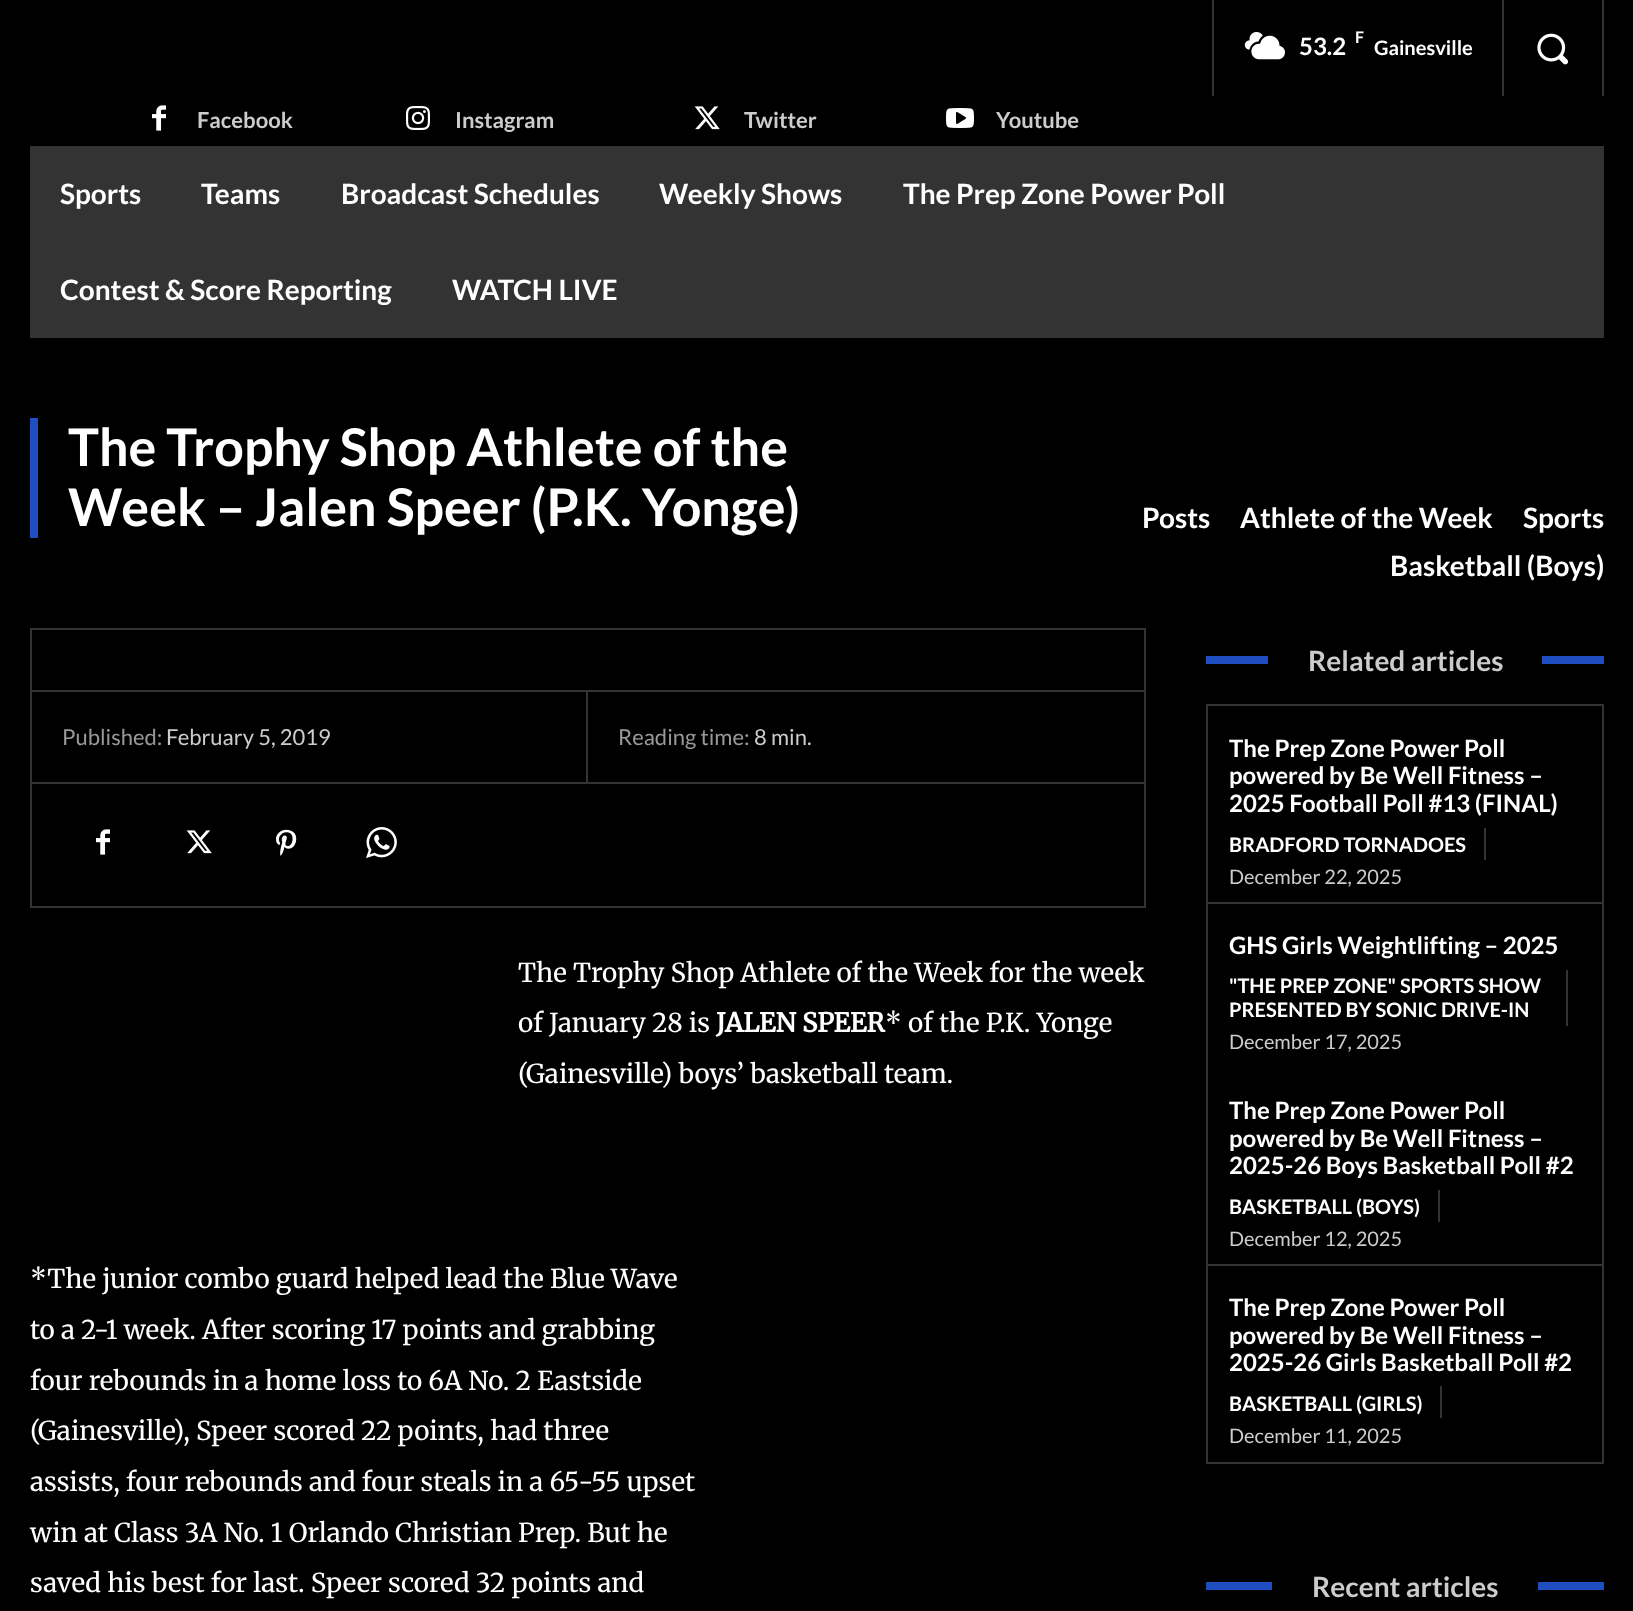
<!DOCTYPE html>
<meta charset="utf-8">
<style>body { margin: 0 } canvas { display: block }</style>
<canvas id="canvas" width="1633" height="1611"></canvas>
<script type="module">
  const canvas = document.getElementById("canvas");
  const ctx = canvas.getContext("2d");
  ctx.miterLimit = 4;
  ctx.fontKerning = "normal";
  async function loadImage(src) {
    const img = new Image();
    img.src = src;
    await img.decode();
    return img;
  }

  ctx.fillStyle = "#000000";
  ctx.fillRect(0, 0, 1633, 1611);
  ctx.fillStyle = "#333333";
  ctx.fillRect(1212, 0, 2, 96);
  ctx.fillRect(1502, 0, 2, 96);
  ctx.drawImage(await loadImage("img1.png"), 1244, 32, 41, 28);
  ctx.font = "bold 24px Lato";
  ctx.fillStyle = "#ffffff";
  ctx.fillText("53.2", 1299, 55);
  ctx.font = "bold 16px Lato";
  ctx.fillText("F", 1355, 43);
  ctx.font = "bold 20px Lato";
  ctx.fillText("Gainesville", 1374, 55);
  ctx.fillStyle = "#333333";
  ctx.fillRect(1602, 0, 2, 96);
  ctx.drawImage(await loadImage("img2.png"), 1537, 33, 32, 32);
  ctx.drawImage(await loadImage("img3.png"), 152, 105, 14, 26);
  ctx.font = "bold 22px Lato";
  ctx.fillStyle = "#cccccc";
  ctx.fillText("Facebook", 197, 128);
  ctx.drawImage(await loadImage("img4.png"), 406, 106, 24, 24);
  ctx.fillText("Instagram", 455, 128);
  ctx.drawImage(await loadImage("img5.png"), 694, 106, 26, 24);
  ctx.fillText("Twitter", 744, 128);
  ctx.drawImage(await loadImage("img6.png"), 946, 108, 28, 20);
  ctx.fillText("Youtube", 996, 128);
  ctx.fillStyle = "#333333";
  ctx.fillRect(30, 146, 1574, 192);
  ctx.font = "bold 28px Lato";
  ctx.fillStyle = "#ffffff";
  ctx.fillText("Sports", 60, 204);
  ctx.fillText("Teams", 201, 204);
  ctx.fillText("Broadcast Schedules", 341, 204);
  ctx.fillText("Weekly Shows", 659, 204);
  ctx.fillText("The Prep Zone Power Poll", 903, 204);
  ctx.fillText("Contest & Score Reporting", 60, 300);
  ctx.fillText("WATCH LIVE", 452, 300);
  ctx.fillStyle = "#1e4ebf";
  ctx.fillRect(30, 418, 8, 120);
  ctx.font = "bold 52px Lato";
  ctx.fillStyle = "#ffffff";
  ctx.fillText("The Trophy Shop Athlete of the", 68, 466);
  ctx.fillText("Week – Jalen Speer (P.K. Yonge)", 68, 526);
  ctx.font = "bold 28px Lato";
  ctx.fillText("Posts", 1142, 528);
  ctx.fillText("Athlete of the Week", 1240, 528);
  ctx.fillText("Sports", 1523, 528);
  ctx.fillText("Basketball (Boys)", 1390, 576);
  ctx.fillStyle = "#333333";
  ctx.fillRect(30, 628, 1116, 2);
  ctx.fillRect(1144, 628, 2, 62);
  ctx.fillRect(30, 628, 2, 62);
  ctx.strokeStyle = "#333333";
  ctx.lineWidth = 2;
  ctx.strokeRect(31, 691, 1114, 216);
  ctx.fillRect(586, 692, 2, 90);
  ctx.font = "22px Lato";
  ctx.fillStyle = "#999999";
  ctx.fillText("Published:", 62, 745);
  ctx.fillStyle = "#cccccc";
  ctx.fillText("February 5, 2019", 166, 745);
  ctx.fillStyle = "#999999";
  ctx.fillText("Reading time:", 618, 745);
  ctx.fillStyle = "#cccccc";
  ctx.fillText("8 min.", 754, 745);
  ctx.fillStyle = "#333333";
  ctx.fillRect(32, 782, 1112, 2);
  ctx.drawImage(await loadImage("img3.png"), 96, 829, 14, 26);
  ctx.drawImage(await loadImage("img5.png"), 186, 830, 26, 24);
  ctx.drawImage(await loadImage("img7.png"), 276, 829, 21, 27);
  ctx.drawImage(await loadImage("img8.png"), 366, 827, 31, 31);
  ctx.font = "300 26px Merriweather";
  ctx.fillStyle = "#ffffff";
  ctx.fillText("The Trophy Shop Athlete of the Week for the week", 518, 982);
  ctx.fillText("of January 28 is", 518, 1032);
  ctx.font = "bold 26px Merriweather";
  ctx.fillText("JALEN SPEER", 716, 1032);
  ctx.font = "300 26px Merriweather";
  ctx.fillText("* of the P.K. Yonge", 885, 1032);
  ctx.fillText("(Gainesville) boys’ basketball team.", 518, 1083);
  ctx.fillText("*The junior combo guard helped lead the Blue Wave", 30, 1288);
  ctx.fillText("to a 2-1 week. After scoring 17 points and grabbing", 30, 1339);
  ctx.fillText("four rebounds in a home loss to 6A No. 2 Eastside", 30, 1390);
  ctx.fillText("(Gainesville), Speer scored 22 points, had three", 30, 1440);
  ctx.fillText("assists, four rebounds and four steals in a 65-55 upset", 30, 1491);
  ctx.fillText("win at Class 3A No. 1 Orlando Christian Prep. But he", 30, 1542);
  ctx.fillText("saved his best for last. Speer scored 32 points and", 30, 1592);
  ctx.fillStyle = "#1e4ebf";
  ctx.fillRect(1206, 656, 62, 8);
  ctx.font = "bold 28px Lato";
  ctx.fillStyle = "#cccccc";
  ctx.fillText("Related articles", 1308, 671);
  ctx.fillStyle = "#1e4ebf";
  ctx.fillRect(1542, 656, 62, 8);
  ctx.strokeRect(1207, 705, 396, 758);
  ctx.font = "bold 24px Lato";
  ctx.fillStyle = "#ffffff";
  ctx.fillText("The Prep Zone Power Poll", 1229, 757);
  ctx.fillText("powered by Be Well Fitness –", 1229, 784);
  ctx.fillText("2025 Football Poll #13 (FINAL)", 1229, 812);
  ctx.fillStyle = "#333333";
  ctx.fillRect(1484, 828, 2, 32);
  ctx.font = "bold 20px Lato";
  ctx.fillStyle = "#ffffff";
  ctx.fillText("BRADFORD TORNADOES", 1229, 852);
  ctx.font = "20px Lato";
  ctx.fillStyle = "#cccccc";
  ctx.fillText("December 22, 2025", 1229, 884);
  ctx.fillStyle = "#333333";
  ctx.fillRect(1208, 902, 394, 2);
  ctx.font = "bold 24px Lato";
  ctx.fillStyle = "#ffffff";
  ctx.fillText("GHS Girls Weightlifting – 2025", 1229, 954);
  ctx.fillStyle = "#333333";
  ctx.fillRect(1566, 970, 2, 56);
  ctx.font = "bold 20px Lato";
  ctx.fillStyle = "#ffffff";
  ctx.fillText("\"THE PREP ZONE\" SPORTS SHOW", 1229, 993);
  ctx.fillText("PRESENTED BY SONIC DRIVE-IN", 1229, 1017);
  ctx.font = "20px Lato";
  ctx.fillStyle = "#cccccc";
  ctx.fillText("December 17, 2025", 1229, 1049);
  ctx.font = "bold 24px Lato";
  ctx.fillStyle = "#ffffff";
  ctx.fillText("The Prep Zone Power Poll", 1229, 1119);
  ctx.fillText("powered by Be Well Fitness –", 1229, 1147);
  ctx.fillText("2025-26 Boys Basketball Poll #2", 1229, 1174);
  ctx.fillStyle = "#333333";
  ctx.fillRect(1438, 1190, 2, 32);
  ctx.font = "bold 20px Lato";
  ctx.fillStyle = "#ffffff";
  ctx.fillText("BASKETBALL (BOYS)", 1229, 1214);
  ctx.font = "20px Lato";
  ctx.fillStyle = "#cccccc";
  ctx.fillText("December 12, 2025", 1229, 1246);
  ctx.fillStyle = "#333333";
  ctx.fillRect(1208, 1264, 394, 2);
  ctx.font = "bold 24px Lato";
  ctx.fillStyle = "#ffffff";
  ctx.fillText("The Prep Zone Power Poll", 1229, 1316);
  ctx.fillText("powered by Be Well Fitness –", 1229, 1344);
  ctx.fillText("2025-26 Girls Basketball Poll #2", 1229, 1371);
  ctx.fillStyle = "#333333";
  ctx.fillRect(1440, 1386, 2, 32);
  ctx.font = "bold 20px Lato";
  ctx.fillStyle = "#ffffff";
  ctx.fillText("BASKETBALL (GIRLS)", 1229, 1411);
  ctx.font = "20px Lato";
  ctx.fillStyle = "#cccccc";
  ctx.fillText("December 11, 2025", 1229, 1443);
  ctx.fillStyle = "#1e4ebf";
  ctx.fillRect(1206, 1582, 66, 8);
  ctx.font = "bold 28px Lato";
  ctx.fillStyle = "#cccccc";
  ctx.fillText("Recent articles", 1312, 1597);
  ctx.fillStyle = "#1e4ebf";
  ctx.fillRect(1538, 1582, 66, 8);
</script>
